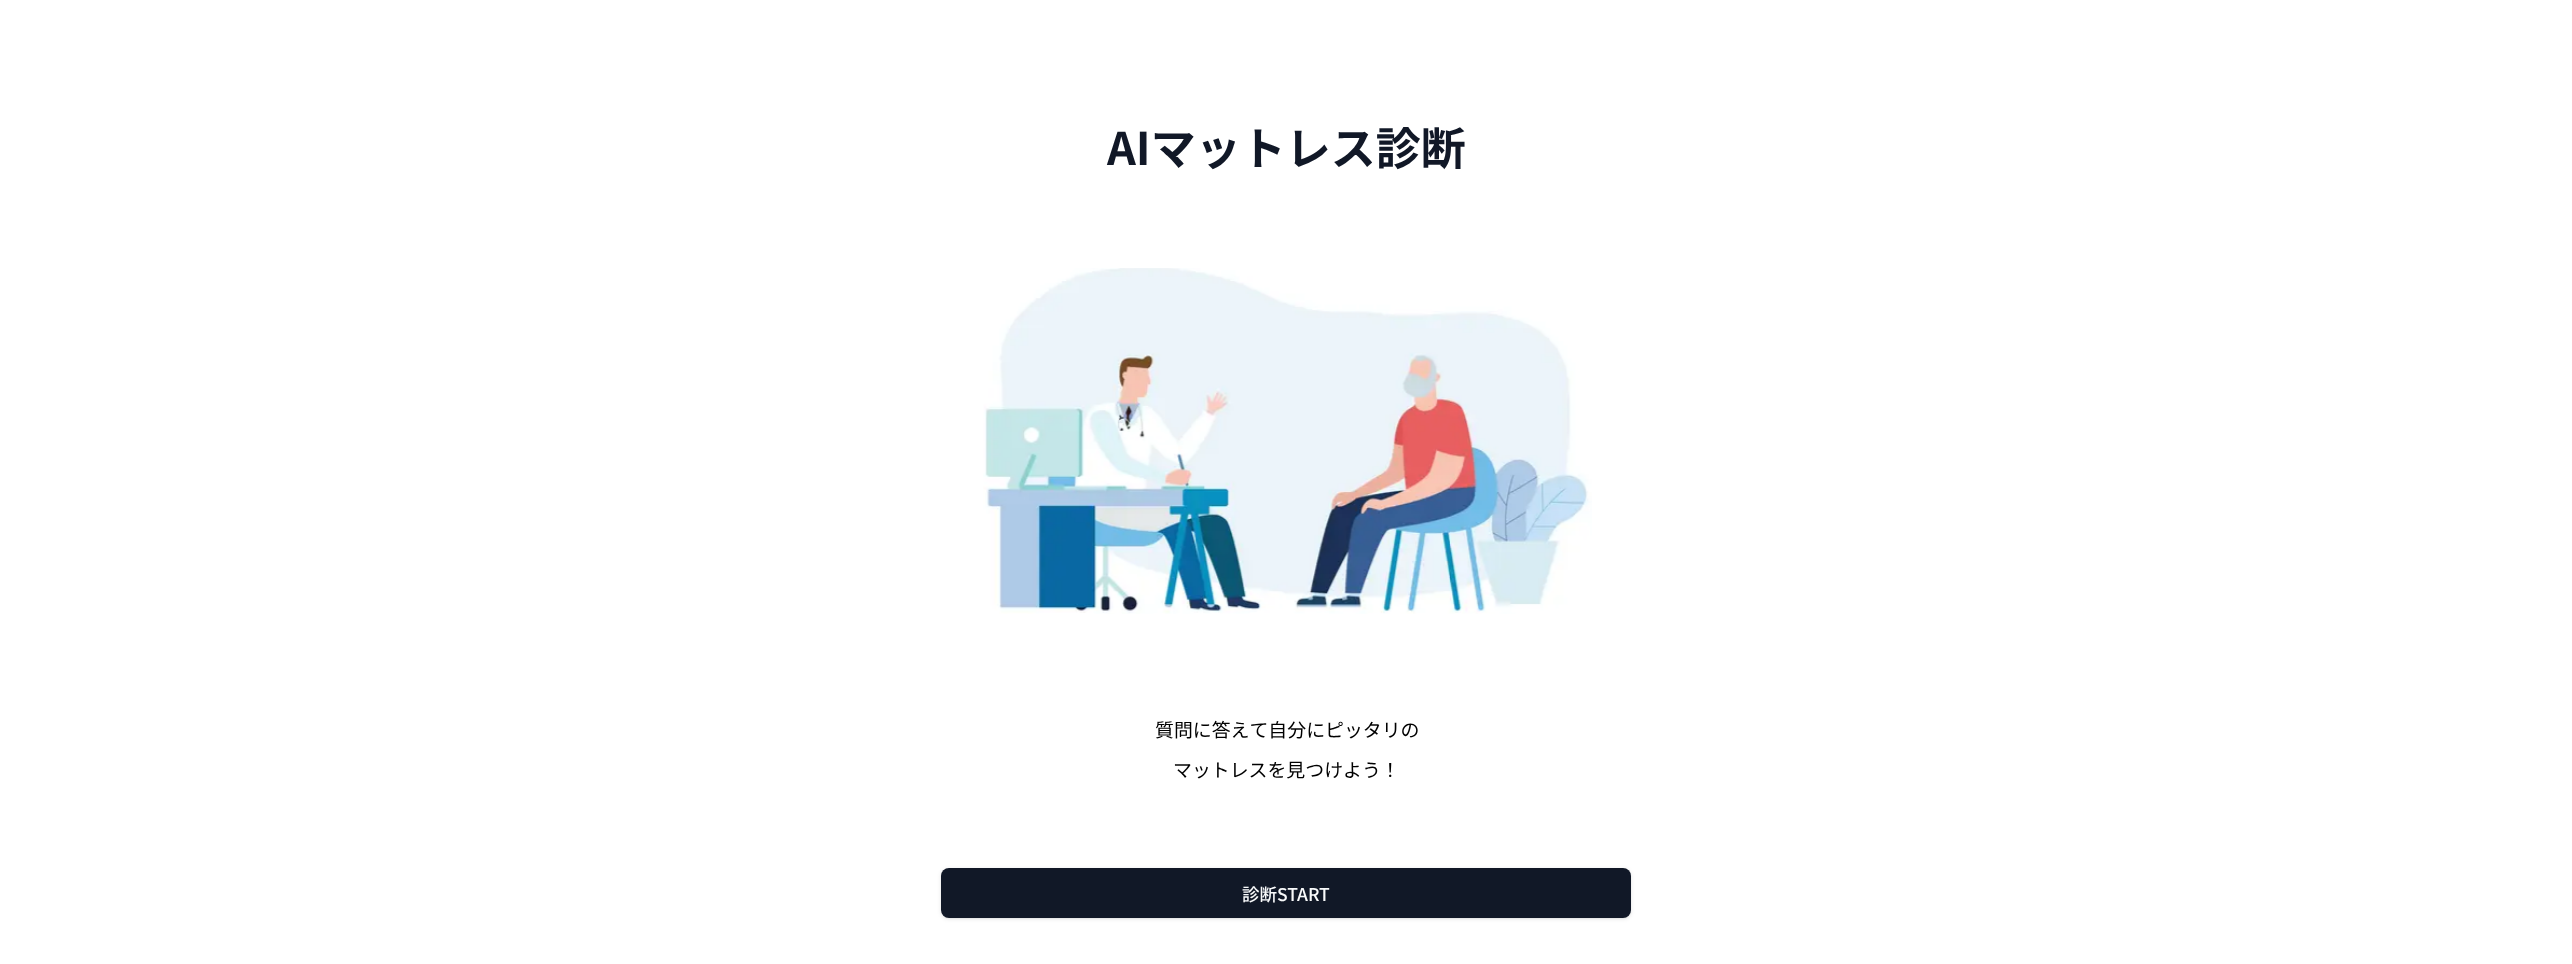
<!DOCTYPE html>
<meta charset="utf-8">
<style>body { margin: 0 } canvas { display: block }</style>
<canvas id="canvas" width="2572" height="964"></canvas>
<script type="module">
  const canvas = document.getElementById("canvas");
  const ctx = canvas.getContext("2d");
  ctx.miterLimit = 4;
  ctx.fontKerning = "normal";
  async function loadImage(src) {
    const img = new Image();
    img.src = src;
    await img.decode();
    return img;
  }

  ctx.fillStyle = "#ffffff";
  ctx.fillRect(0, 0, 2572, 964);
  ctx.font = "bold 45px Noto Sans JP";
  ctx.fillStyle = "#111827";
  ctx.fillText("AIマットレス診断", 1107, 165);
  ctx.drawImage(await loadImage("img1.png"), 983, 268, 609, 346);
  ctx.font = "18.9px Noto Sans JP";
  ctx.fillStyle = "#000000";
  ctx.fillText("質問に答えて自分にピッタリの", 1155, 737);
  ctx.fillText("マットレスを見つけよう！", 1173, 777);
  ctx.fillStyle = "rgba(0, 0, 0, 0.1)";
  ctx.filter = "blur(1px)";
  ctx.beginPath();
  ctx.roundRect(943, 870, 687, 48, 6);
  ctx.fill();
  ctx.filter = "none";
  ctx.filter = "blur(2px)";
  ctx.beginPath();
  ctx.roundRect(941, 869, 690, 50, 8);
  ctx.fill();
  ctx.filter = "none";
  ctx.fillStyle = "#111827";
  ctx.beginPath();
  ctx.roundRect(941, 868, 690, 50, 8);
  ctx.fill();
  ctx.font = "500 17.5px Noto Sans JP";
  ctx.fillStyle = "#f9fafb";
  ctx.fillText("診断START", 1242, 901);
</script>
